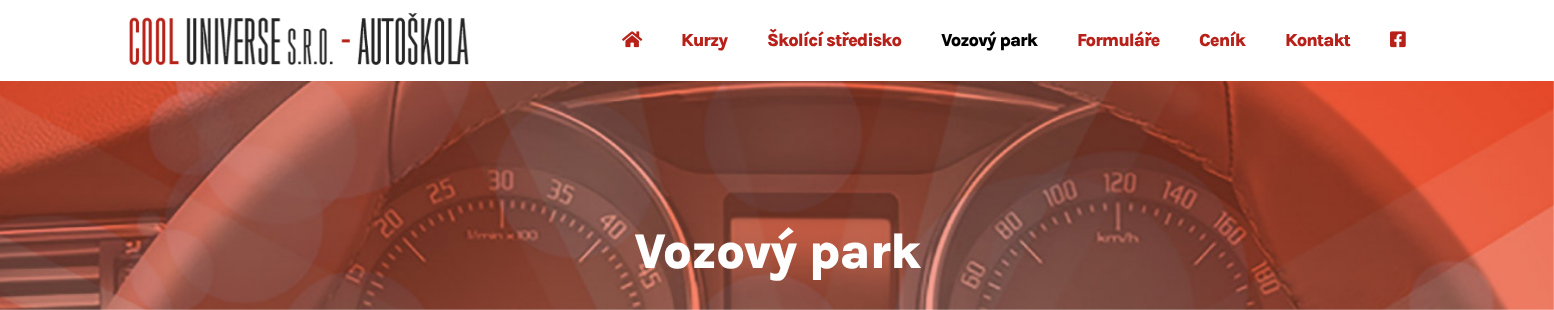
<!DOCTYPE html>
<meta charset="utf-8">
<style>body { margin: 0 } canvas { display: block }</style>
<canvas id="canvas" width="1554" height="310"></canvas>
<script type="module">
  const canvas = document.getElementById("canvas");
  const ctx = canvas.getContext("2d");
  ctx.miterLimit = 4;
  ctx.fontKerning = "normal";
  async function loadImage(src) {
    const img = new Image();
    img.src = src;
    await img.decode();
    return img;
  }

  ctx.fillStyle = "#ffffff";
  ctx.fillRect(0, 0, 1554, 310);
  ctx.drawImage(await loadImage("img1.png"), 129, 13, 340, 52);
  ctx.drawImage(await loadImage("img2.png"), 622, 31, 21, 17);
  ctx.letterSpacing = "-1px";
  ctx.font = "800 18px Karla";
  ctx.fillStyle = "#b7211a";
  ctx.fillText("Kurzy", 681, 46);
  ctx.fillText("Školící středisko", 767, 46);
  ctx.fillStyle = "#000000";
  ctx.fillText("Vozový park", 941, 46);
  ctx.fillStyle = "#b7211a";
  ctx.fillText("Formuláře", 1077, 46);
  ctx.fillText("Ceník", 1199, 46);
  ctx.fillText("Kontakt", 1285, 46);
  ctx.drawImage(await loadImage("img3.png"), 1390, 31, 16, 17);
  ctx.drawImage(await loadImage("img4.png"), 0, 81, 1554, 229);
  ctx.font = "800 50px Karla";
  ctx.fillStyle = "#ffffff";
  ctx.fillText("Vozový park", 634, 268);
</script>
